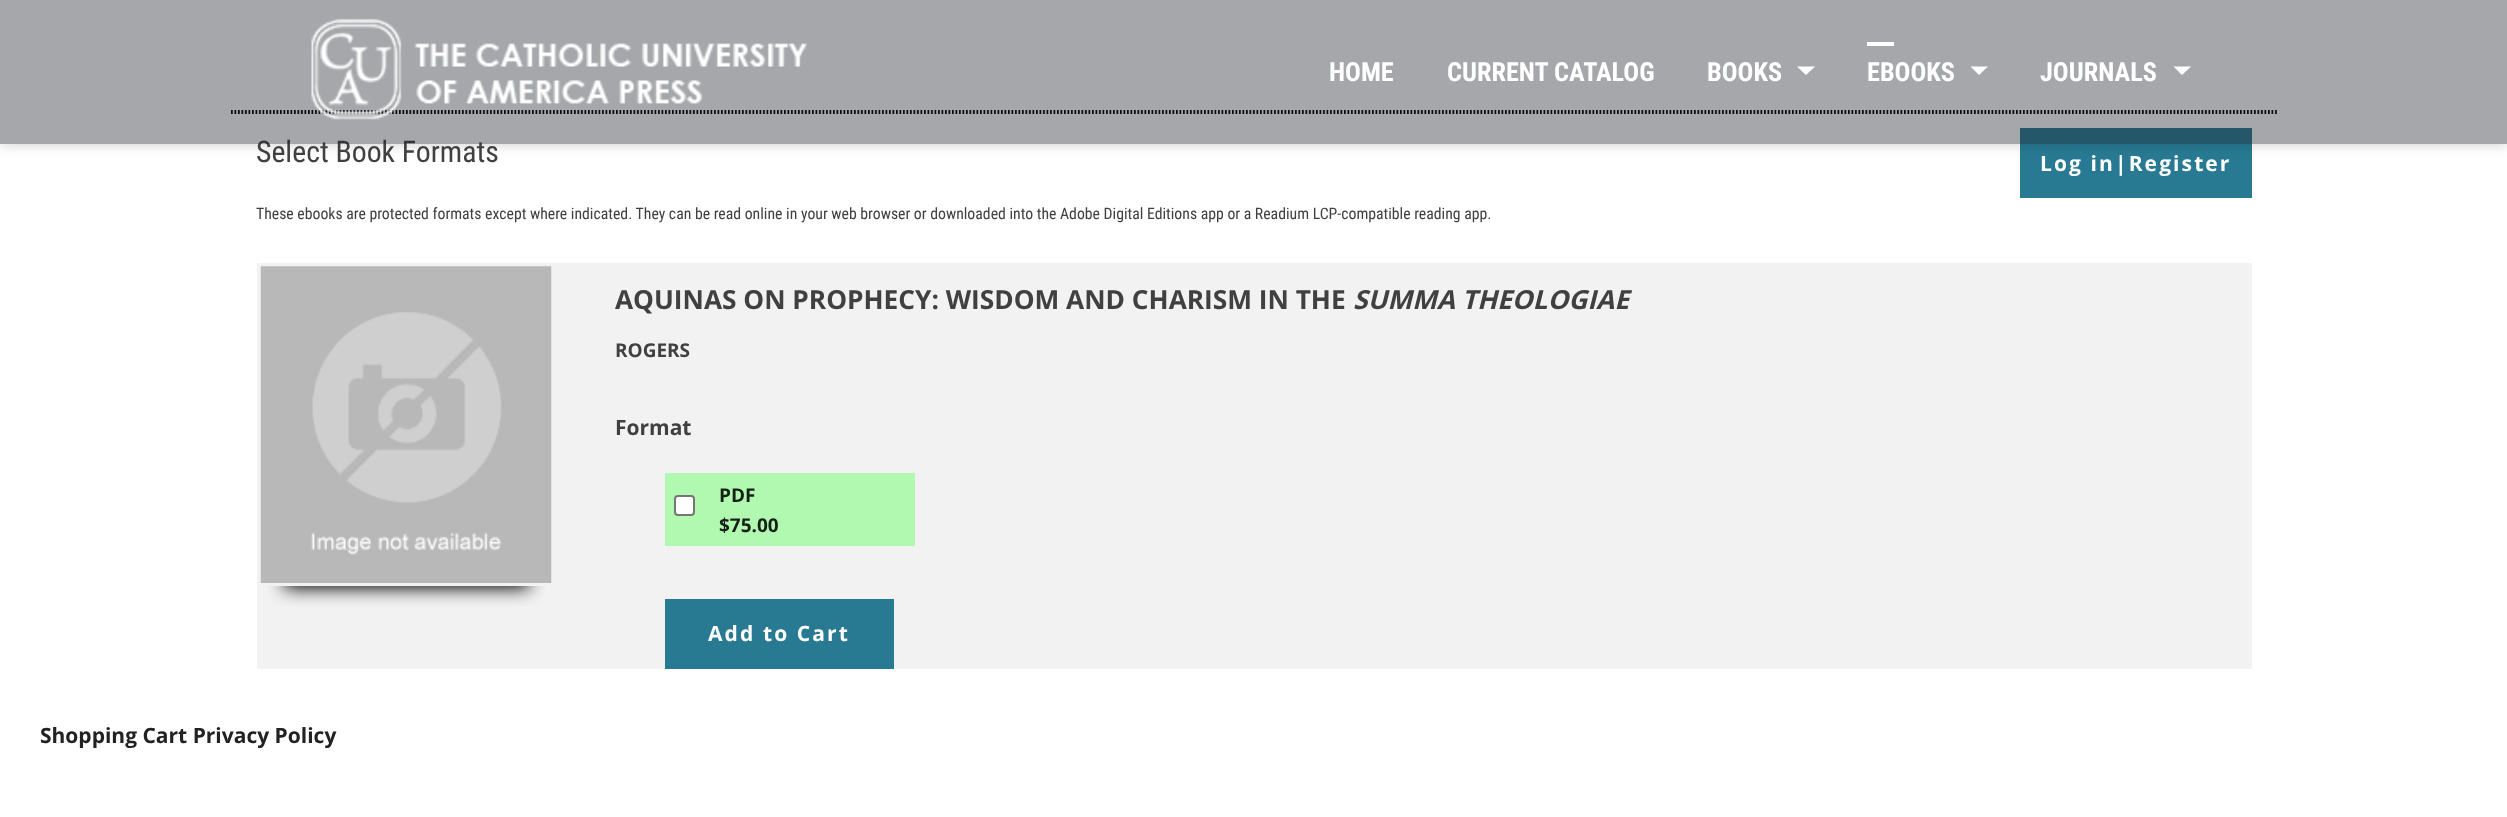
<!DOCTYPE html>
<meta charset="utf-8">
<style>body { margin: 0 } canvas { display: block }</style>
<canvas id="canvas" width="2507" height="817"></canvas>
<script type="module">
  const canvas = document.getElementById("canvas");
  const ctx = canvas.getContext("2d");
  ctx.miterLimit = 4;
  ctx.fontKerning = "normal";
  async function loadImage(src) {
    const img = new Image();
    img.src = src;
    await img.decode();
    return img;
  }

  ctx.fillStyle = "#ffffff";
  ctx.fillRect(0, 0, 2507, 817);
  ctx.beginPath();
  ctx.moveTo(231, 113);
  ctx.lineTo(2278.5, 113);
  ctx.strokeStyle = "#000000";
  ctx.lineWidth = 1.8;
  ctx.setLineDash([1.75, 1.75]);
  ctx.stroke();
  ctx.beginPath();
  ctx.moveTo(231, 111);
  ctx.lineTo(2278.5, 111);
  ctx.stroke();
  ctx.fillStyle = "#287a93";
  ctx.fillRect(2020, 128, 232, 70);
  ctx.save();
  ctx.beginPath();
  ctx.moveTo(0, 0);
  ctx.lineTo(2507, 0);
  ctx.lineTo(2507, 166);
  ctx.lineTo(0, 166);
  ctx.closePath();
  ctx.moveTo(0, 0);
  ctx.lineTo(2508, 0);
  ctx.lineTo(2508, 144);
  ctx.lineTo(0, 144);
  ctx.closePath();
  ctx.clip("evenodd");
  ctx.fillStyle = "rgba(0, 0, 0, 0.2)";
  ctx.filter = "blur(7px)";
  ctx.beginPath();
  ctx.rect(0, 0, 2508, 144);
  ctx.fill();
  ctx.filter = "none";
  ctx.restore();
  ctx.font = "29.75px Roboto Condensed";
  ctx.fillStyle = "#404040";
  ctx.fillText("Select Book Formats", 256, 162);
  ctx.fillStyle = "rgba(30, 36, 42, 0.4)";
  ctx.fillRect(0, 0, 2507, 144);
  ctx.drawImage(await loadImage("img1.png"), 311, 18, 497, 102);
  ctx.font = "bold 26.25px Roboto Condensed";
  ctx.fillStyle = "#ffffff";
  ctx.fillText("HOME", 1329, 81);
  ctx.fillText("CURRENT CATALOG", 1447, 81);
  ctx.fillText("BOOKS", 1707, 81);
  ctx.beginPath();
  ctx.moveTo(1797, 66.5);
  ctx.lineTo(1815, 66.5);
  ctx.lineTo(1806, 75);
  ctx.closePath();
  ctx.fill();
  ctx.fillRect(1867, 42, 27, 4);
  ctx.fillText("EBOOKS", 1867, 81);
  ctx.beginPath();
  ctx.moveTo(1970.5, 66.5);
  ctx.lineTo(1988, 66.5);
  ctx.lineTo(1979, 75);
  ctx.closePath();
  ctx.fill();
  ctx.fillText("JOURNALS", 2040, 81);
  ctx.beginPath();
  ctx.moveTo(2173.5, 66.5);
  ctx.lineTo(2191, 66.5);
  ctx.lineTo(2182, 75);
  ctx.closePath();
  ctx.fill();
  ctx.font = "15.75px Roboto Condensed";
  ctx.fillStyle = "#404040";
  ctx.fillText("These ebooks are protected formats except where indicated. They can be read online in your web browser or downloaded into the Adobe Digital Editions app or a Readium LCP-compatible reading app.", 256, 219);
  ctx.fillStyle = "#f2f2f2";
  ctx.fillRect(257, 263, 1995, 406);
  ctx.save();
  ctx.beginPath();
  ctx.rect(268, 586, 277, 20);
  ctx.clip();
  ctx.fillStyle = "#000000";
  ctx.filter = "blur(9px)";
  ctx.beginPath();
  ctx.rect(284, 317, 245, 271);
  ctx.fill();
  ctx.filter = "none";
  ctx.restore();
  ctx.drawImage(await loadImage("img2.png"), 260, 266, 292, 317);
  ctx.font = "bold 26.25px Open Sans";
  ctx.fillStyle = "#404040";
  ctx.fillText("AQUINAS ON PROPHECY: WISDOM AND CHARISM IN THE", 615, 309);
  ctx.font = "italic bold 26.25px Open Sans";
  ctx.fillText("SUMMA THEOLOGIAE", 1353, 309);
  ctx.font = "bold 19px Open Sans";
  ctx.fillText("ROGERS", 615, 357);
  ctx.font = "bold 21px Open Sans";
  ctx.fillText("Format", 615, 435);
  ctx.fillStyle = "#b1f9b1";
  ctx.fillRect(665, 473, 250, 73);
  ctx.fillStyle = "#ffffff";
  ctx.beginPath();
  ctx.roundRect(675, 496, 19, 19, 3);
  ctx.fill();
  ctx.strokeStyle = "#767676";
  ctx.lineWidth = 2;
  ctx.setLineDash([]);
  ctx.stroke();
  ctx.font = "bold 19px Open Sans";
  ctx.fillStyle = "#172017";
  ctx.fillText("PDF", 719, 502);
  ctx.fillText("$75.00", 719, 532);
  ctx.fillStyle = "#287a93";
  ctx.fillRect(665, 599, 229, 70);
  ctx.letterSpacing = "2.1px";
  ctx.font = "bold 21px Open Sans";
  ctx.fillStyle = "#ffffff";
  ctx.fillText("Add to Cart", 708, 641);
  ctx.fillText("Log in|Register", 2040, 171);
  ctx.letterSpacing = "0px";
  ctx.fillStyle = "#222222";
  ctx.fillText("Shopping Cart Privacy Policy", 40, 743);
</script>
